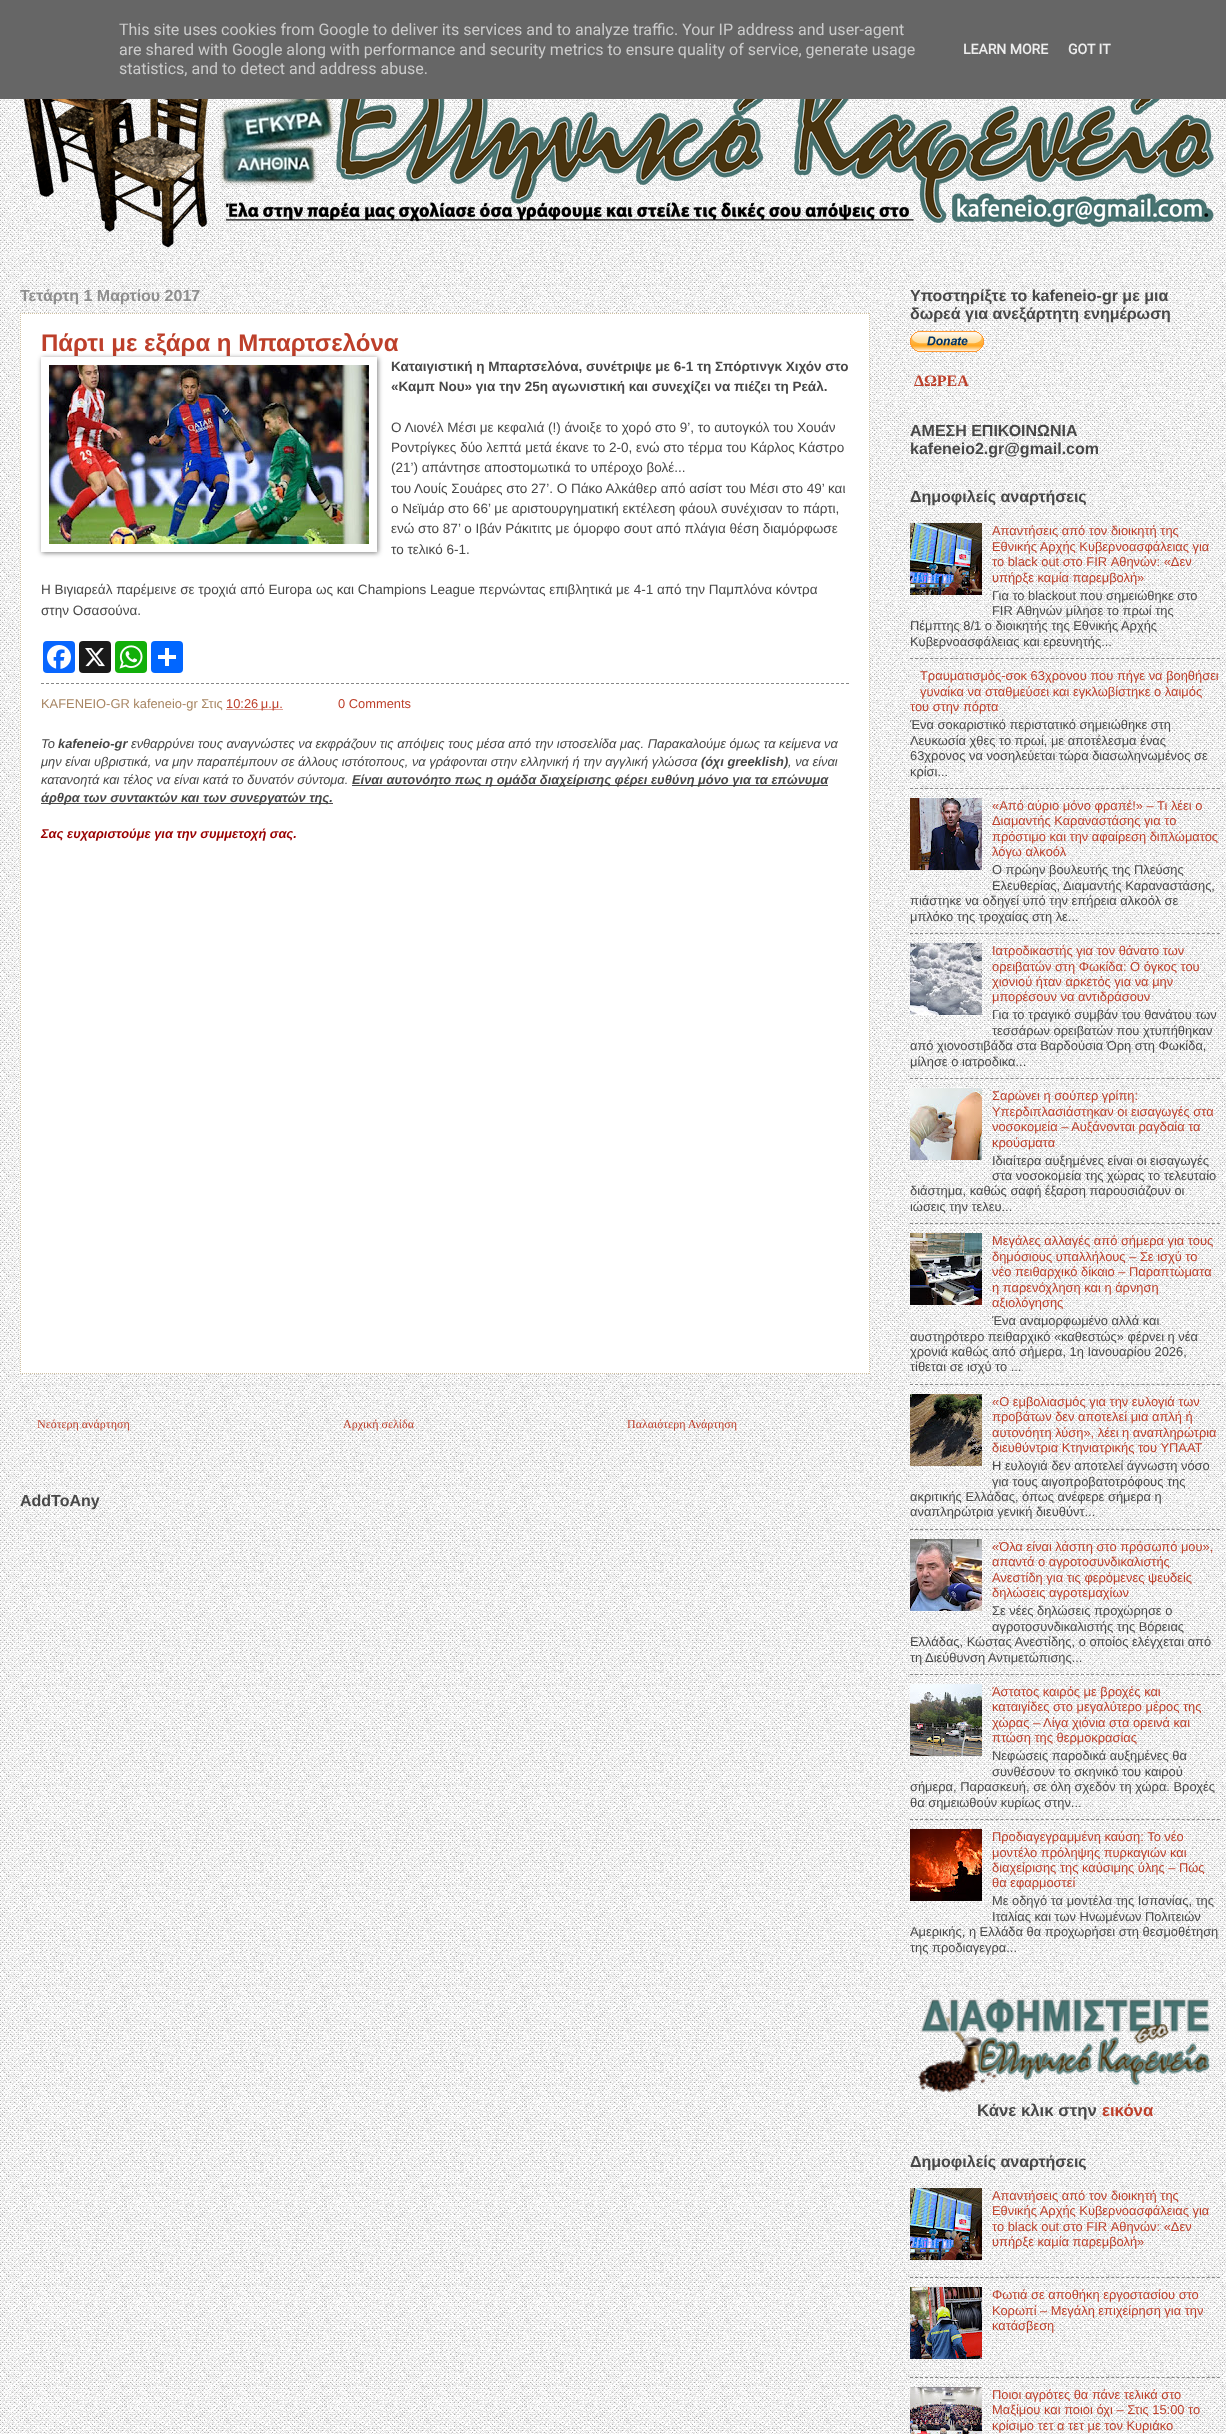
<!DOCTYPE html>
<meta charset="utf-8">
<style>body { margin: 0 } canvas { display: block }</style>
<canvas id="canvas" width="1226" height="2434"></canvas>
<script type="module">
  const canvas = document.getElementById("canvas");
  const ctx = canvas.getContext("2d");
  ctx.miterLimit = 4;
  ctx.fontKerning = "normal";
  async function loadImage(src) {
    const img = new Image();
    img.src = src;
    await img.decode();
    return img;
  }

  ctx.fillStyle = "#ffffff";
  ctx.fillRect(0, 0, 1226, 2434);
  ctx.drawImage(await loadImage("img1.png"), 0, 99, 1226, 2335);
  ctx.fillStyle = "#666666";
  ctx.fillRect(0, 0, 1226, 99);
  ctx.font = "16px Roboto";
  ctx.fillStyle = "#cccccc";
  ctx.fillText("This site uses cookies from Google to deliver its services and to analyze traffic. Your IP address and user-agent", 119, 35);
  ctx.fillText("are shared with Google along with performance and security metrics to ensure quality of service, generate usage", 119, 55);
  ctx.fillText("statistics, and to detect and address abuse.", 119, 74);
  ctx.font = "bold 14px Roboto";
  ctx.fillStyle = "#eeeeee";
  ctx.fillText("LEARN MORE", 963, 54);
  ctx.fillText("GOT IT", 1068, 54);
  ctx.drawImage(await loadImage("img2.png"), 23, 99, 1191, 149);
  ctx.font = "bold 16px Liberation Sans";
  ctx.fillStyle = "#8e8e8e";
  ctx.fillText("Τετάρτη 1 Μαρτίου 2017", 20, 301);
  ctx.fillStyle = "#ffffff";
  ctx.fillRect(20, 313, 850, 1061);
  ctx.beginPath();
  ctx.moveTo(20, 313.5);
  ctx.lineTo(870, 313.5);
  ctx.strokeStyle = "#d0c1a2";
  ctx.setLineDash([1, 1]);
  ctx.stroke();
  ctx.beginPath();
  ctx.moveTo(869.5, 313);
  ctx.lineTo(869.5, 1374);
  ctx.stroke();
  ctx.beginPath();
  ctx.moveTo(20, 1373.5);
  ctx.lineTo(870, 1373.5);
  ctx.stroke();
  ctx.beginPath();
  ctx.moveTo(20.5, 313);
  ctx.lineTo(20.5, 1374);
  ctx.stroke();
  ctx.font = "bold 24px Liberation Sans";
  ctx.fillStyle = "#bd3f2a";
  ctx.fillText("Πάρτι με εξάρα η Μπαρτσελόνα", 41, 351);
  ctx.save();
  ctx.beginPath();
  ctx.moveTo(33, 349);
  ctx.lineTo(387, 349);
  ctx.lineTo(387, 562);
  ctx.lineTo(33, 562);
  ctx.closePath();
  ctx.moveTo(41, 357);
  ctx.lineTo(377, 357);
  ctx.lineTo(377, 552);
  ctx.lineTo(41, 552);
  ctx.closePath();
  ctx.clip("evenodd");
  ctx.fillStyle = "rgba(0, 0, 0, 0.5)";
  ctx.filter = "blur(2.5px)";
  ctx.beginPath();
  ctx.rect(42, 358, 336, 195);
  ctx.fill();
  ctx.filter = "none";
  ctx.restore();
  ctx.drawImage(await loadImage("img3.png"), 49, 365, 320, 179);
  ctx.font = "bold 13.52px Liberation Sans";
  ctx.fillStyle = "#484848";
  ctx.fillText("Καταιγιστική η Μπαρτσελόνα, συνέτριψε με 6-1 τη Σπόρτινγκ Χιχόν στο", 391, 371);
  ctx.fillText("«Καμπ Νου» για την 25η αγωνιστική και συνεχίζει να πιέζει τη Ρεάλ.", 391, 391);
  ctx.font = "13.52px Liberation Sans";
  ctx.fillText("Ο Λιονέλ Μέσι με κεφαλιά (!) άνοιξε το χορό στο 9’, το αυτογκόλ του Χουάν", 391, 432);
  ctx.fillText("Ροντρίγκες δύο λεπτά μετά έκανε το 2-0, ενώ στο τέρμα του Κάρλος Κάστρο", 391, 452);
  ctx.fillText("(21’) απάντησε αποστομωτικά το υπέροχο βολέ...", 391, 472);
  ctx.fillText("του Λουίς Σουάρες στο 27’. Ο Πάκο Αλκάθερ από ασίστ του Μέσι στο 49’ και", 391, 493);
  ctx.fillText("ο Νεϊμάρ στο 66’ με αριστουργηματική εκτέλεση φάουλ συνέχισαν το πάρτι,", 391, 513);
  ctx.fillText("ενώ στο 87’ ο Ιβάν Ράκιτιτς με όμορφο σουτ από πλάγια θέση διαμόρφωσε", 391, 533);
  ctx.fillText("το τελικό 6-1.", 391, 554);
  ctx.fillText("Η Βιγιαρεάλ παρέμεινε σε τροχιά από Europa ως και Champions League περνώντας επιβλητικά με 4-1 από την Παμπλόνα κόντρα", 41, 594);
  ctx.fillText("στην Οσασούνα.", 41, 615);
  ctx.fillStyle = "#0866ff";
  ctx.beginPath();
  ctx.roundRect(43, 641, 32, 32, 4);
  ctx.fill();
  ctx.drawImage(await loadImage("img4.png"), 47, 645, 24, 24);
  ctx.fillStyle = "#1a1a1a";
  ctx.beginPath();
  ctx.roundRect(79, 641, 32, 32, 4);
  ctx.fill();
  ctx.drawImage(await loadImage("img5.png"), 85, 648, 20, 19);
  ctx.fillStyle = "#12af0a";
  ctx.beginPath();
  ctx.roundRect(115, 641, 32, 32, 4);
  ctx.fill();
  ctx.drawImage(await loadImage("img6.png"), 119, 645, 24, 24);
  ctx.fillStyle = "#0166ff";
  ctx.beginPath();
  ctx.roundRect(151, 641, 32, 32, 4);
  ctx.fill();
  ctx.fillStyle = "#ffffff";
  ctx.fillRect(165, 648, 4, 18);
  ctx.fillRect(158, 655, 18, 4);
  ctx.beginPath();
  ctx.moveTo(41, 683.5);
  ctx.lineTo(849, 683.5);
  ctx.strokeStyle = "#868686";
  ctx.setLineDash([3, 2]);
  ctx.stroke();
  ctx.font = "12.88px Liberation Sans";
  ctx.fillStyle = "#a88663";
  ctx.fillText("KAFENEIO-GR kafeneio-gr Στις", 41, 708);
  ctx.beginPath();
  ctx.moveTo(226.5, 709.5);
  ctx.lineTo(283, 709.5);
  ctx.strokeStyle = "#bd3f2a";
  ctx.setLineDash([1, 1]);
  ctx.stroke();
  ctx.fillStyle = "#bd3f2a";
  ctx.fillText("10:26 μ.μ.", 226, 708);
  ctx.fillText("0 Comments", 338, 708);
  ctx.font = "italic 12.88px Liberation Sans";
  ctx.fillStyle = "#484848";
  ctx.fillText("Το", 41, 748);
  ctx.font = "italic bold 12.88px Liberation Sans";
  ctx.fillText("kafeneio-gr", 58, 748);
  ctx.font = "italic 12.88px Liberation Sans";
  ctx.fillText("ενθαρρύνει τους αναγνώστες να εκφράζουν τις απόψεις τους μέσα από την ιστοσελίδα μας. Παρακαλούμε όμως τα κείμενα να", 131, 748);
  ctx.fillText("μην είναι υβριστικά, να μην παραπέμπουν σε άλλους ιστότοπους, να γράφονται στην ελληνική ή την αγγλική γλώσσα", 41, 766);
  ctx.font = "italic bold 12.88px Liberation Sans";
  ctx.fillText("(όχι greeklish)", 701, 766);
  ctx.font = "italic 12.88px Liberation Sans";
  ctx.fillText(", να είναι", 788, 766);
  ctx.fillText("κατανοητά και τέλος να είναι κατά το δυνατόν σύντομα.", 41, 784);
  ctx.fillRect(352, 785, 476, 1);
  ctx.font = "italic bold 12.88px Liberation Sans";
  ctx.fillText("Είναι αυτονόητο πως η ομάδα διαχείρισης φέρει ευθύνη μόνο για τα επώνυμα", 352, 784);
  ctx.fillRect(41, 803, 292, 1);
  ctx.fillText("άρθρα των συντακτών και των συνεργατών της.", 41, 802);
  ctx.fillStyle = "#990000";
  ctx.fillText("Σας ευχαριστούμε για την συμμετοχή σας.", 41, 838);
  ctx.font = "12px Liberation Serif";
  ctx.fillStyle = "#bd3f2a";
  ctx.fillText("Νεότερη ανάρτηση", 37, 1428);
  ctx.fillText("Αρχική σελίδα", 343, 1428);
  ctx.fillText("Παλαιότερη Ανάρτηση", 627, 1428);
  ctx.font = "bold 16px Liberation Sans";
  ctx.fillStyle = "#484848";
  ctx.fillText("AddToAny", 20, 1506);
  ctx.fillText("Υποστηρίξτε το kafeneio-gr με μια", 910, 301);
  ctx.fillText("δωρεά για ανεξάρτητη ενημέρωση", 910, 319);
  ctx.drawImage(await loadImage("img7.png"), 910, 331, 74, 21);
  ctx.font = "bold 16px Liberation Serif";
  ctx.fillStyle = "#bd3f2a";
  ctx.fillText("ΔΩΡΕΑ", 914, 386);
  ctx.font = "bold 16px Liberation Sans";
  ctx.fillStyle = "#484848";
  ctx.fillText("ΑΜΕΣΗ ΕΠΙΚΟΙΝΩΝΙΑ", 910, 436);
  ctx.fillText("kafeneio2.gr@gmail.com", 910, 454);
  ctx.fillText("Δημοφιλείς αναρτήσεις", 910, 502);
  ctx.drawImage(await loadImage("img8.png"), 910, 523, 72, 72);
  ctx.font = "12.88px Liberation Sans";
  ctx.fillStyle = "#bd3f2a";
  ctx.fillText("Απαντήσεις από τον διοικητή της", 992, 535);
  ctx.fillText("Εθνικής Αρχής Κυβερνοασφάλειας για", 992, 551);
  ctx.fillText("το black out στο FIR Αθηνών: «Δεν", 992, 566);
  ctx.fillText("υπήρξε καμία παρεμβολή»", 992, 582);
  ctx.fillStyle = "#484848";
  ctx.fillText("Για το blackout που σημειώθηκε στο", 992, 600);
  ctx.fillText("FIR Αθηνών μίλησε το πρωί της", 992, 615);
  ctx.fillText("Πέμπτης 8/1 ο διοικητής της Εθνικής Αρχής", 910, 630);
  ctx.fillText("Κυβερνοασφάλειας και ερευνητής...", 910, 646);
  ctx.beginPath();
  ctx.moveTo(910, 658.5);
  ctx.lineTo(1220, 658.5);
  ctx.strokeStyle = "#868686";
  ctx.setLineDash([3, 2.03]);
  ctx.stroke();
  ctx.fillStyle = "#bd3f2a";
  ctx.fillText("Τραυματισμός-σοκ 63χρονου που πήγε να βοηθήσει", 920, 680);
  ctx.fillText("γυναίκα να σταθμεύσει και εγκλωβίστηκε ο λαιμός", 920, 696);
  ctx.fillText("του στην πόρτα", 910, 711);
  ctx.fillStyle = "#484848";
  ctx.fillText("Ένα σοκαριστικό περιστατικό σημειώθηκε στη", 910, 729);
  ctx.fillText("Λευκωσία χθες το πρωί, με αποτέλεσμα ένας", 910, 745);
  ctx.fillText("63χρονος να νοσηλεύεται τώρα διασωληνωμένος σε", 910, 760);
  ctx.fillText("κρίσι...", 910, 776);
  ctx.beginPath();
  ctx.moveTo(910, 788.5);
  ctx.lineTo(1220, 788.5);
  ctx.stroke();
  ctx.drawImage(await loadImage("img9.png"), 910, 798, 72, 72);
  ctx.fillStyle = "#bd3f2a";
  ctx.fillText("«Από αύριο μόνο φραπέ!» – Τι λέει ο", 992, 810);
  ctx.fillText("Διαμαντής Καραναστάσης για το", 992, 825);
  ctx.fillText("πρόστιμο και την αφαίρεση διπλώματος", 992, 841);
  ctx.fillText("λόγω αλκοόλ", 992, 856);
  ctx.fillStyle = "#484848";
  ctx.fillText("Ο πρώην βουλευτής της Πλεύσης", 992, 874);
  ctx.fillText("Ελευθερίας, Διαμαντής Καραναστάσης,", 992, 890);
  ctx.fillText("πιάστηκε να οδηγεί υπό την επήρεια αλκοόλ σε", 910, 905);
  ctx.fillText("μπλόκο της τροχαίας στη λε...", 910, 921);
  ctx.beginPath();
  ctx.moveTo(910, 933.5);
  ctx.lineTo(1220, 933.5);
  ctx.stroke();
  ctx.drawImage(await loadImage("img10.png"), 910, 943, 72, 72);
  ctx.fillStyle = "#bd3f2a";
  ctx.fillText("Ιατροδικαστής για τον θάνατο των", 992, 955);
  ctx.fillText("ορειβατών στη Φωκίδα: Ο όγκος του", 992, 971);
  ctx.fillText("χιονιού ήταν αρκετός για να μην", 992, 986);
  ctx.fillText("μπορέσουν να αντιδράσουν", 992, 1001);
  ctx.fillStyle = "#484848";
  ctx.fillText("Για το τραγικό συμβάν του θανάτου των", 992, 1019);
  ctx.fillText("τεσσάρων ορειβατών που χτυπήθηκαν", 992, 1035);
  ctx.fillText("από χιονοστιβάδα στα Βαρδούσια Όρη στη Φωκίδα,", 910, 1050);
  ctx.fillText("μίλησε ο ιατροδικα...", 910, 1066);
  ctx.beginPath();
  ctx.moveTo(910, 1078.5);
  ctx.lineTo(1220, 1078.5);
  ctx.stroke();
  ctx.drawImage(await loadImage("img11.png"), 910, 1088, 72, 72);
  ctx.fillStyle = "#bd3f2a";
  ctx.fillText("Σαρώνει η σούπερ γρίπη:", 992, 1100);
  ctx.fillText("Υπερδιπλασιάστηκαν οι εισαγωγές στα", 992, 1116);
  ctx.fillText("νοσοκομεία – Αυξάνονται ραγδαία τα", 992, 1131);
  ctx.fillText("κρούσματα", 992, 1147);
  ctx.fillStyle = "#484848";
  ctx.fillText("Ιδιαίτερα αυξημένες είναι οι εισαγωγές", 992, 1165);
  ctx.fillText("στα νοσοκομεία της χώρας το τελευταίο", 992, 1180);
  ctx.fillText("διάστημα, καθώς σαφή έξαρση παρουσιάζουν οι", 910, 1195);
  ctx.fillText("ιώσεις την τελευ...", 910, 1211);
  ctx.beginPath();
  ctx.moveTo(910, 1223.5);
  ctx.lineTo(1220, 1223.5);
  ctx.stroke();
  ctx.drawImage(await loadImage("img12.png"), 910, 1233, 72, 72);
  ctx.fillStyle = "#bd3f2a";
  ctx.fillText("Μεγάλες αλλαγές από σήμερα για τους", 992, 1245);
  ctx.fillText("δημόσιους υπαλλήλους – Σε ισχύ το", 992, 1261);
  ctx.fillText("νέο πειθαρχικό δίκαιο – Παραπτώματα", 992, 1276);
  ctx.fillText("η παρενόχληση και η άρνηση", 992, 1292);
  ctx.fillText("αξιολόγησης", 992, 1307);
  ctx.fillStyle = "#484848";
  ctx.fillText("Ένα αναμορφωμένο αλλά και", 992, 1325);
  ctx.fillText("αυστηρότερο πειθαρχικό «καθεστώς» φέρνει η νέα", 910, 1341);
  ctx.fillText("χρονιά καθώς από σήμερα, 1η Ιανουαρίου 2026,", 910, 1356);
  ctx.fillText("τίθεται σε ισχύ το ...", 910, 1371);
  ctx.beginPath();
  ctx.moveTo(910, 1384.5);
  ctx.lineTo(1220, 1384.5);
  ctx.stroke();
  ctx.drawImage(await loadImage("img13.png"), 910, 1394, 72, 72);
  ctx.fillStyle = "#bd3f2a";
  ctx.fillText("«Ο εμβολιασμός για την ευλογιά των", 992, 1406);
  ctx.fillText("προβάτων δεν αποτελεί μια απλή ή", 992, 1421);
  ctx.fillText("αυτονόητη λύση», λέει η αναπληρώτρια", 992, 1437);
  ctx.fillText("διευθύντρια Κτηνιατρικής του ΥΠΑΑΤ", 992, 1452);
  ctx.fillStyle = "#484848";
  ctx.fillText("Η ευλογιά δεν αποτελεί άγνωστη νόσο", 992, 1470);
  ctx.fillText("για τους αιγοπροβατοτρόφους της", 992, 1486);
  ctx.fillText("ακριτικής Ελλάδας, όπως ανέφερε σήμερα η", 910, 1501);
  ctx.fillText("αναπληρώτρια γενική διευθύντ...", 910, 1516);
  ctx.beginPath();
  ctx.moveTo(910, 1529.5);
  ctx.lineTo(1220, 1529.5);
  ctx.stroke();
  ctx.drawImage(await loadImage("img14.png"), 910, 1539, 72, 72);
  ctx.fillStyle = "#bd3f2a";
  ctx.fillText("«Όλα είναι λάσπη στο πρόσωπό μου»,", 992, 1551);
  ctx.fillText("απαντά ο αγροτοσυνδικαλιστής", 992, 1566);
  ctx.fillText("Ανεστίδη για τις φερόμενες ψευδείς", 992, 1582);
  ctx.fillText("δηλώσεις αγροτεμαχίων", 992, 1597);
  ctx.fillStyle = "#484848";
  ctx.fillText("Σε νέες δηλώσεις προχώρησε ο", 992, 1615);
  ctx.fillText("αγροτοσυνδικαλιστής της Βόρειας", 992, 1631);
  ctx.fillText("Ελλάδας, Κώστας Ανεστίδης, ο οποίος ελέγχεται από", 910, 1646);
  ctx.fillText("τη Διεύθυνση Αντιμετώπισης...", 910, 1662);
  ctx.beginPath();
  ctx.moveTo(910, 1674.5);
  ctx.lineTo(1220, 1674.5);
  ctx.stroke();
  ctx.drawImage(await loadImage("img15.png"), 910, 1684, 72, 72);
  ctx.fillStyle = "#bd3f2a";
  ctx.fillText("Άστατος καιρός με βροχές και", 992, 1696);
  ctx.fillText("καταιγίδες στο μεγαλύτερο μέρος της", 992, 1711);
  ctx.fillText("χώρας – Λίγα χιόνια στα ορεινά και", 992, 1727);
  ctx.fillText("πτώση της θερμοκρασίας", 992, 1742);
  ctx.fillStyle = "#484848";
  ctx.fillText("Νεφώσεις παροδικά αυξημένες θα", 992, 1760);
  ctx.fillText("συνθέσουν το σκηνικό του καιρού", 992, 1776);
  ctx.fillText("σήμερα, Παρασκευή, σε όλη σχεδόν τη χώρα. Βροχές", 910, 1791);
  ctx.fillText("θα σημειωθούν κυρίως στην...", 910, 1807);
  ctx.beginPath();
  ctx.moveTo(910, 1819.5);
  ctx.lineTo(1220, 1819.5);
  ctx.stroke();
  ctx.drawImage(await loadImage("img16.png"), 910, 1829, 72, 72);
  ctx.fillStyle = "#bd3f2a";
  ctx.fillText("Προδιαγεγραμμένη καύση: Το νέο", 992, 1841);
  ctx.fillText("μοντέλο πρόληψης πυρκαγιών και", 992, 1857);
  ctx.fillText("διαχείρισης της καύσιμης ύλης – Πώς", 992, 1872);
  ctx.fillText("θα εφαρμοστεί", 992, 1887);
  ctx.fillStyle = "#484848";
  ctx.fillText("Με οδηγό τα μοντέλα της Ισπανίας, της", 992, 1905);
  ctx.fillText("Ιταλίας και των Ηνωμένων Πολιτειών", 992, 1921);
  ctx.fillText("Αμερικής, η Ελλάδα θα προχωρήσει στη θεσμοθέτηση", 910, 1936);
  ctx.fillText("της προδιαγεγρα...", 910, 1952);
  ctx.drawImage(await loadImage("img17.png"), 918, 1997, 293, 96);
  ctx.font = "bold 16.75px Liberation Sans";
  ctx.fillText("Κάνε κλικ στην", 977, 2116);
  ctx.fillStyle = "#bd3f2a";
  ctx.fillText("εικόνα", 1102, 2116);
  ctx.font = "bold 16px Liberation Sans";
  ctx.fillStyle = "#484848";
  ctx.fillText("Δημοφιλείς αναρτήσεις", 910, 2167);
  ctx.drawImage(await loadImage("img8.png"), 910, 2188, 72, 72);
  ctx.font = "12.88px Liberation Sans";
  ctx.fillStyle = "#bd3f2a";
  ctx.fillText("Απαντήσεις από τον διοικητή της", 992, 2200);
  ctx.fillText("Εθνικής Αρχής Κυβερνοασφάλειας για", 992, 2215);
  ctx.fillText("το black out στο FIR Αθηνών: «Δεν", 992, 2231);
  ctx.fillText("υπήρξε καμία παρεμβολή»", 992, 2246);
  ctx.beginPath();
  ctx.moveTo(910, 2277.5);
  ctx.lineTo(1220, 2277.5);
  ctx.stroke();
  ctx.drawImage(await loadImage("img18.png"), 910, 2287, 72, 72);
  ctx.fillText("Φωτιά σε αποθήκη εργοστασίου στο", 992, 2299);
  ctx.fillText("Κορωπί – Μεγάλη επιχείρηση για την", 992, 2315);
  ctx.fillText("κατάσβεση", 992, 2330);
  ctx.beginPath();
  ctx.moveTo(910, 2377.5);
  ctx.lineTo(1220, 2377.5);
  ctx.stroke();
  ctx.drawImage(await loadImage("img19.png"), 910, 2387, 72, 47);
  ctx.fillText("Ποιοι αγρότες θα πάνε τελικά στο", 992, 2399);
  ctx.fillText("Μαξίμου και ποιοι όχι – Στις 15:00 το", 992, 2414);
  ctx.fillText("κρίσιμο τετ α τετ με τον Κυριάκο", 992, 2430);
</script>
